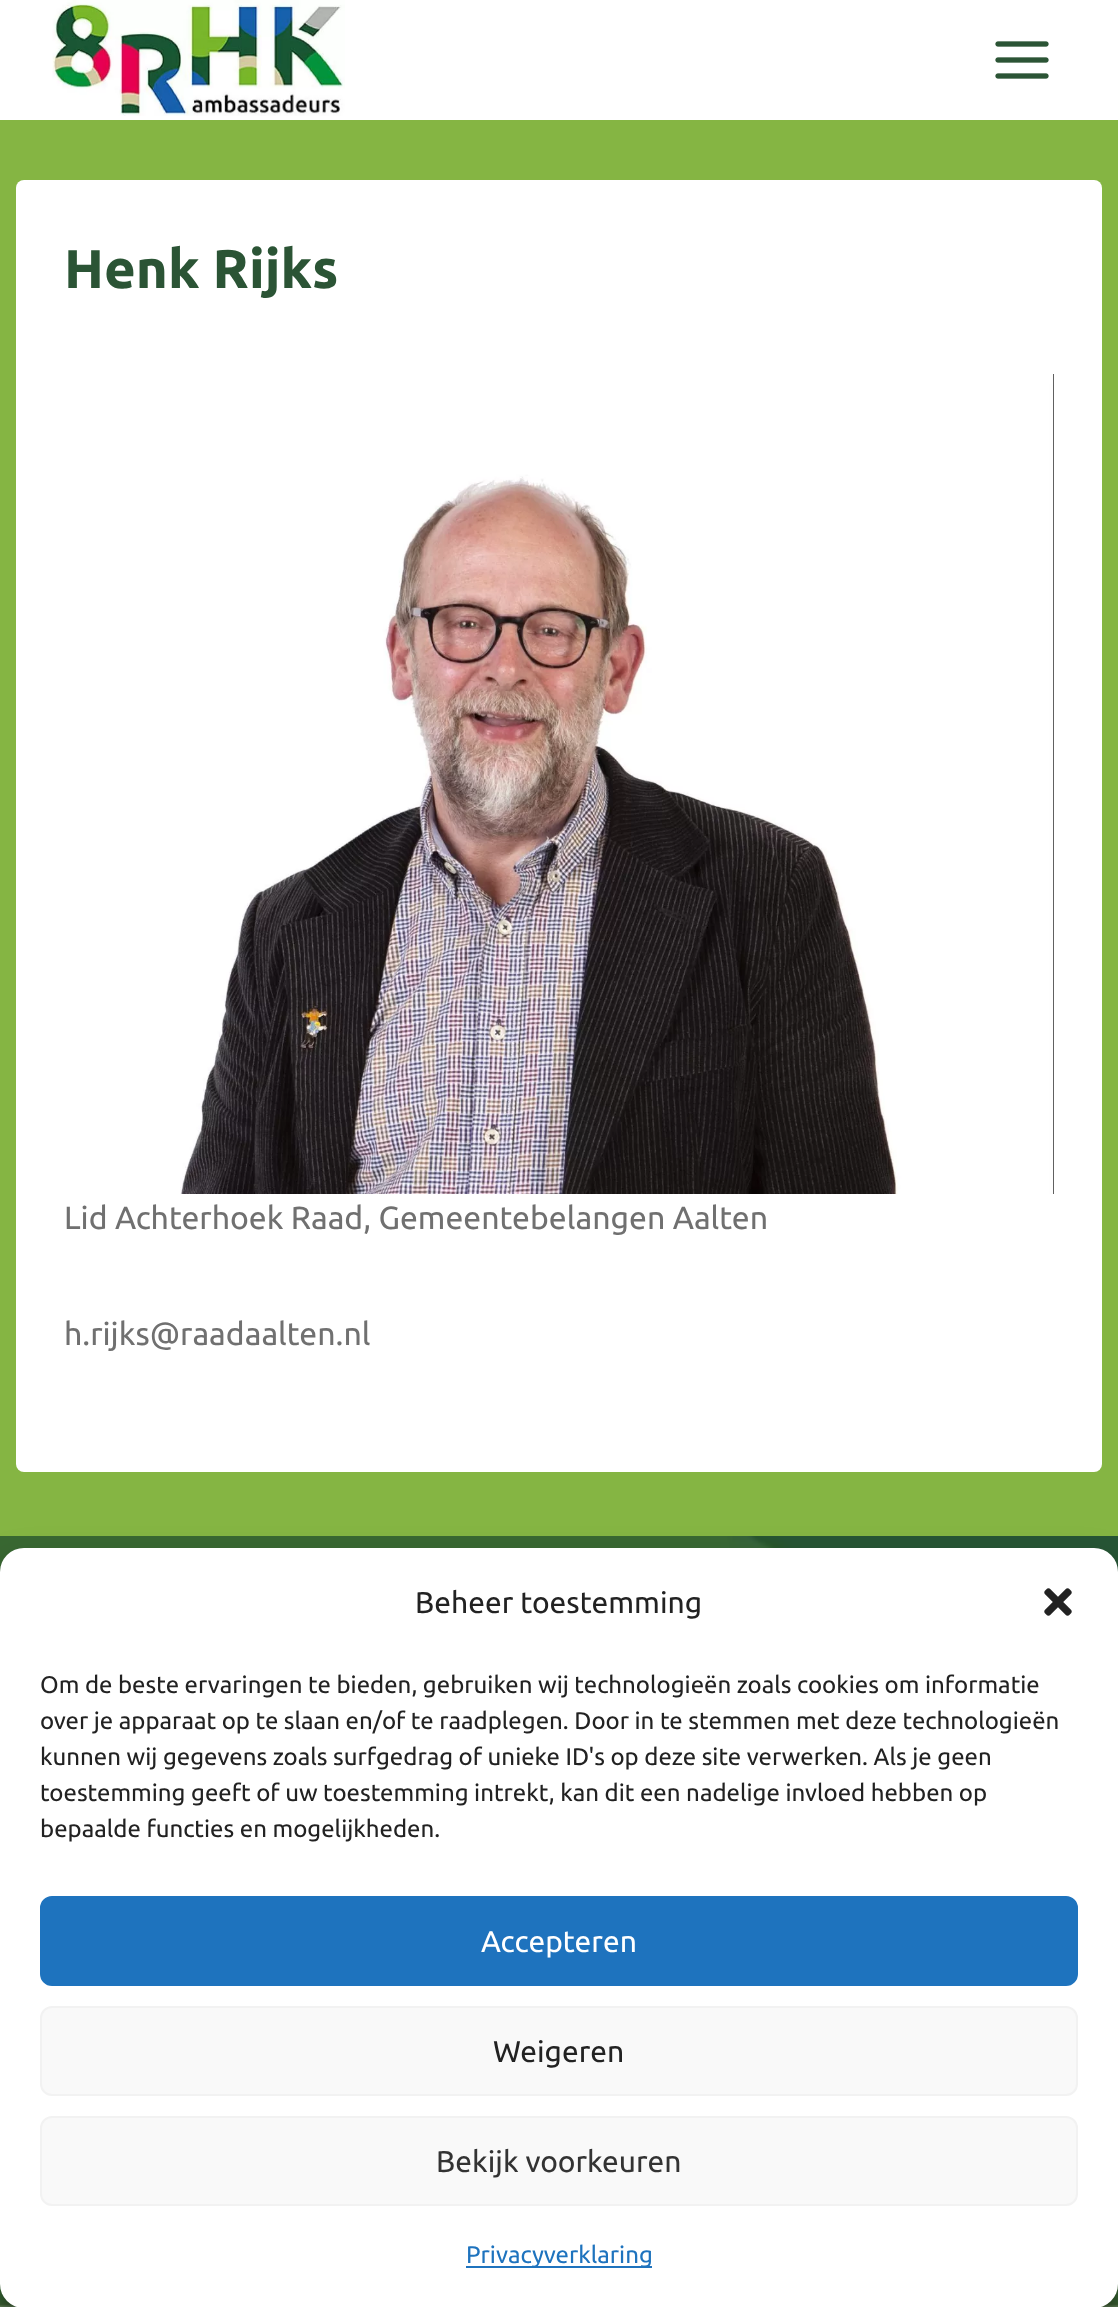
<!DOCTYPE html>
<meta charset="utf-8">
<style>body { margin: 0 } canvas { display: block }</style>
<canvas id="canvas" width="1118" height="2307"></canvas>
<script type="module">
  const canvas = document.getElementById("canvas");
  const ctx = canvas.getContext("2d");
  ctx.miterLimit = 4;
  ctx.fontKerning = "normal";
  async function loadImage(src) {
    const img = new Image();
    img.src = src;
    await img.decode();
    return img;
  }

  ctx.fillStyle = "#85b543";
  ctx.fillRect(0, 0, 1118, 2307);
  ctx.fillStyle = "#ffffff";
  ctx.fillRect(0, 0, 1118, 120);
  ctx.drawImage(await loadImage("img1.png"), 52, 0, 293, 116);
  ctx.drawImage(await loadImage("img2.png"), 995, 41, 54, 38);
  ctx.beginPath();
  ctx.roundRect(16, 180, 1086, 1292, 8);
  ctx.fill();
  ctx.font = "bold 54.5px Ubuntu";
  ctx.fillStyle = "#2b5435";
  ctx.fillText("Henk Rijks", 64, 288);
  ctx.drawImage(await loadImage("img3.png"), 180, 374, 874, 820);
  ctx.font = "32px Ubuntu";
  ctx.fillStyle = "#707070";
  ctx.fillText("Lid Achterhoek Raad, Gemeentebelangen Aalten", 64, 1229);
  ctx.fillText("h.rijks@raadaalten.nl", 64, 1345);
  ctx.drawImage(await loadImage("img4.png"), 0, 1536, 1118, 771);
  ctx.fillStyle = "rgba(0, 0, 0, 0.23)";
  ctx.filter = "blur(6px)";
  ctx.beginPath();
  ctx.roundRect(0, 1560, 1118, 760, 24);
  ctx.fill();
  ctx.filter = "none";
  ctx.fillStyle = "rgba(0, 0, 0, 0.19)";
  ctx.filter = "blur(20px)";
  ctx.beginPath();
  ctx.roundRect(0, 1568, 1118, 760, 24);
  ctx.fill();
  ctx.filter = "none";
  ctx.fillStyle = "#ffffff";
  ctx.beginPath();
  ctx.roundRect(0, 1548, 1118, 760, 24);
  ctx.fill();
  ctx.font = "30px Ubuntu";
  ctx.fillStyle = "#222222";
  ctx.fillText("Beheer toestemming", 415, 1613);
  ctx.drawImage(await loadImage("img5.png"), 1044, 1588, 28, 28);
  ctx.font = "24px Ubuntu";
  ctx.fillText("Om de beste ervaringen te bieden, gebruiken wij technologieën zoals cookies om informatie", 40, 1693);
  ctx.fillText("over je apparaat op te slaan en/of te raadplegen. Door in te stemmen met deze technologieën", 40, 1729);
  ctx.fillText("kunnen wij gegevens zoals surfgedrag of unieke ID's op deze site verwerken. Als je geen", 40, 1765);
  ctx.fillText("toestemming geeft of uw toestemming intrekt, kan dit een nadelige invloed hebben op", 40, 1801);
  ctx.fillText("bepaalde functies en mogelijkheden.", 40, 1837);
  ctx.fillStyle = "#1e73be";
  ctx.beginPath();
  ctx.roundRect(41, 1897, 1036, 88, 11);
  ctx.fill();
  ctx.strokeStyle = "#1e73be";
  ctx.lineWidth = 2;
  ctx.stroke();
  ctx.font = "30px Ubuntu";
  ctx.fillStyle = "#ffffff";
  ctx.fillText("Accepteren", 481, 1952);
  ctx.fillStyle = "#f9f9f9";
  ctx.beginPath();
  ctx.roundRect(41, 2007, 1036, 88, 11);
  ctx.fill();
  ctx.strokeStyle = "#f2f2f2";
  ctx.stroke();
  ctx.fillStyle = "#222222";
  ctx.fillText("Weigeren", 493, 2062);
  ctx.fillStyle = "#f9f9f9";
  ctx.beginPath();
  ctx.roundRect(41, 2117, 1036, 88, 11);
  ctx.fill();
  ctx.stroke();
  ctx.fillStyle = "#333333";
  ctx.fillText("Bekijk voorkeuren", 436, 2172);
  ctx.fillStyle = "#1e73be";
  ctx.fillRect(466, 2266, 186, 2);
  ctx.font = "24px Ubuntu";
  ctx.fillText("Privacyverklaring", 466, 2263);
</script>
